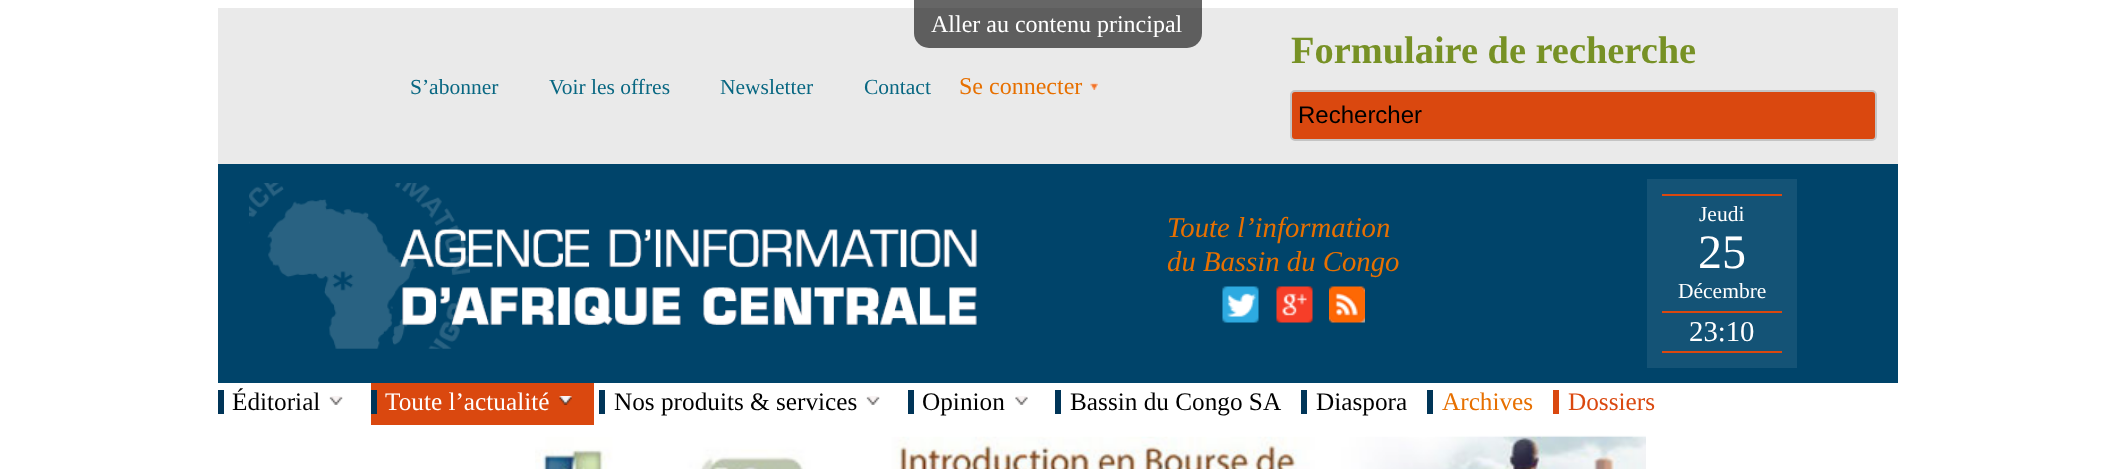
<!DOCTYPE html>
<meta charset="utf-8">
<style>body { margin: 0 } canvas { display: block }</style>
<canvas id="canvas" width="2113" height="469"></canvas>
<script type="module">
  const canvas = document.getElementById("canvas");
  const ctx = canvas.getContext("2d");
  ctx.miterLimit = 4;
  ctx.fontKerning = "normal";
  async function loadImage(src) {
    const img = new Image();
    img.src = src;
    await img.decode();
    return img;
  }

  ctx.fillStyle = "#ffffff";
  ctx.fillRect(0, 0, 2113, 469);
  ctx.fillStyle = "#eaeaea";
  ctx.fillRect(218, 8, 1680, 156);
  ctx.fillStyle = "rgba(0, 0, 0, 0.6)";
  ctx.beginPath();
  ctx.roundRect(914, 0, 288, 48, [0, 0, 15, 15]);
  ctx.fill();
  ctx.font = "24px Liberation Serif";
  ctx.fillStyle = "#ffffff";
  ctx.fillText("Aller au contenu principal", 931, 32);
  ctx.font = "21.5px Liberation Serif";
  ctx.fillStyle = "#086782";
  ctx.fillText("S’abonner", 410, 94);
  ctx.fillText("Voir les offres", 549, 94);
  ctx.fillText("Newsletter", 720, 94);
  ctx.fillText("Contact", 864, 94);
  ctx.drawImage(await loadImage("img1.png"), 1090, 82, 8, 8);
  ctx.font = "24px Liberation Serif";
  ctx.fillStyle = "#e77000";
  ctx.fillText("Se connecter", 959, 94);
  ctx.font = "bold 38.4px Liberation Serif";
  ctx.fillStyle = "#779125";
  ctx.fillText("Formulaire de recherche", 1291, 63);
  ctx.fillStyle = "#da480f";
  ctx.beginPath();
  ctx.roundRect(1291, 91, 585, 49, 4);
  ctx.fill();
  ctx.strokeStyle = "#c4c4c4";
  ctx.lineWidth = 2;
  ctx.stroke();
  ctx.font = "24px Liberation Sans";
  ctx.fillStyle = "#000000";
  ctx.fillText("Rechercher", 1298, 123);
  ctx.fillStyle = "#00446a";
  ctx.fillRect(218, 164, 1680, 219);
  ctx.drawImage(await loadImage("img2.png"), 249, 183, 728, 166);
  ctx.font = "italic 28.75px Liberation Serif";
  ctx.fillStyle = "#e77000";
  ctx.fillText("Toute l’information", 1167, 237);
  ctx.fillText("du Bassin du Congo", 1167, 271);
  ctx.drawImage(await loadImage("img3.png"), 1222, 286, 37, 37);
  ctx.drawImage(await loadImage("img4.png"), 1276, 286, 37, 37);
  ctx.drawImage(await loadImage("img5.png"), 1329, 286, 36, 37);
  ctx.fillStyle = "#145376";
  ctx.fillRect(1647, 179, 150, 189);
  ctx.fillStyle = "#da480f";
  ctx.fillRect(1662, 194, 120, 2);
  ctx.font = "21.5px Liberation Serif";
  ctx.fillStyle = "#ffffff";
  ctx.fillText("Jeudi", 1699, 221);
  ctx.font = "48px Liberation Serif";
  ctx.fillText("25", 1698, 268);
  ctx.font = "21.5px Liberation Serif";
  ctx.fillText("Décembre", 1678, 298);
  ctx.fillStyle = "#da480f";
  ctx.fillRect(1662, 311, 120, 2);
  ctx.fillRect(1662, 351, 120, 2);
  ctx.font = "28.75px Liberation Serif";
  ctx.fillStyle = "#ffffff";
  ctx.fillText("23:10", 1689, 341);
  ctx.fillStyle = "#003558";
  ctx.fillRect(218, 390, 6, 24);
  ctx.drawImage(await loadImage("img6.png"), 329, 396, 14, 9);
  ctx.font = "25.25px Liberation Serif";
  ctx.fillStyle = "#000000";
  ctx.fillText("Éditorial", 232, 410);
  ctx.fillStyle = "#da480f";
  ctx.fillRect(371, 383, 223, 42);
  ctx.fillStyle = "#003558";
  ctx.fillRect(371, 390, 6, 24);
  ctx.drawImage(await loadImage("img7.png"), 559, 396, 13, 9);
  ctx.fillStyle = "#ffffff";
  ctx.fillText("Toute l’actualité", 385, 410);
  ctx.fillStyle = "#003558";
  ctx.fillRect(599, 390, 6, 24);
  ctx.drawImage(await loadImage("img6.png"), 866, 396, 14, 9);
  ctx.fillStyle = "#000000";
  ctx.fillText("Nos produits & services", 614, 410);
  ctx.fillStyle = "#003558";
  ctx.fillRect(908, 390, 6, 24);
  ctx.drawImage(await loadImage("img8.png"), 1015, 396, 13, 9);
  ctx.fillStyle = "#000000";
  ctx.fillText("Opinion", 922, 410);
  ctx.fillStyle = "#003558";
  ctx.fillRect(1055, 390, 6, 24);
  ctx.fillStyle = "#000000";
  ctx.fillText("Bassin du Congo SA", 1070, 410);
  ctx.fillStyle = "#003558";
  ctx.fillRect(1301, 390, 6, 24);
  ctx.fillStyle = "#000000";
  ctx.fillText("Diaspora", 1316, 410);
  ctx.fillStyle = "#003558";
  ctx.fillRect(1427, 390, 6, 24);
  ctx.fillStyle = "#e77000";
  ctx.fillText("Archives", 1442, 410);
  ctx.fillStyle = "#da480f";
  ctx.fillRect(1553, 390, 6, 24);
  ctx.fillText("Dossiers", 1568, 410);
  ctx.drawImage(await loadImage("img9.png"), 535, 435, 1111, 34);
</script>
